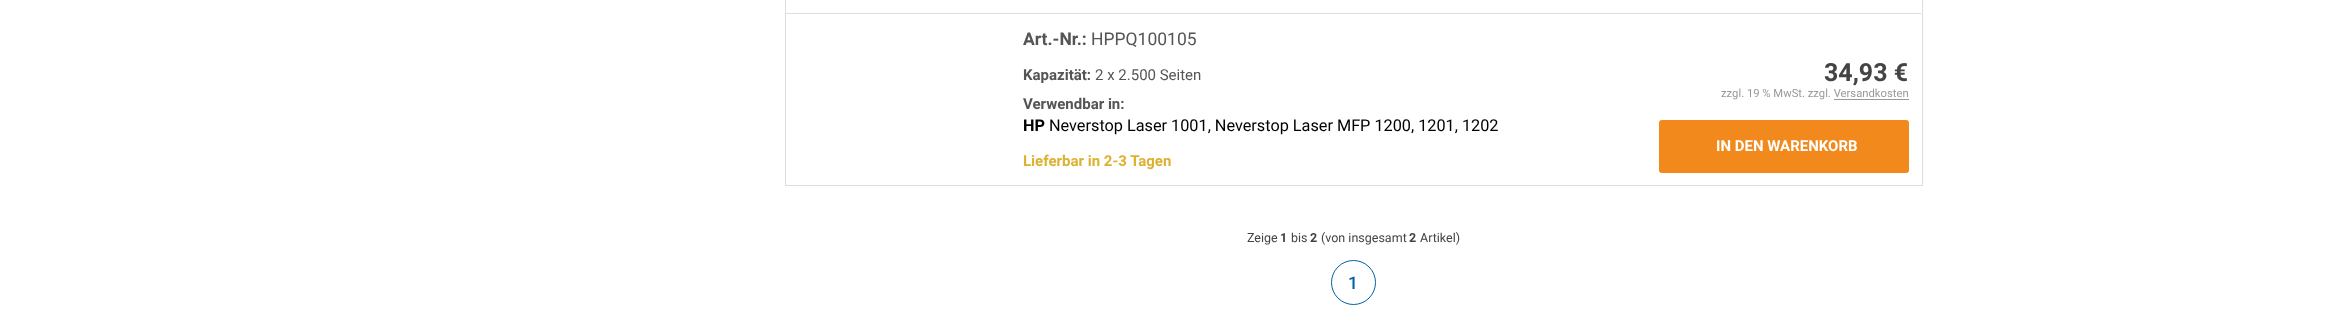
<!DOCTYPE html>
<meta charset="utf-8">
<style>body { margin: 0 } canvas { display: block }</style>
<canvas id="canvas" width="2343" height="316"></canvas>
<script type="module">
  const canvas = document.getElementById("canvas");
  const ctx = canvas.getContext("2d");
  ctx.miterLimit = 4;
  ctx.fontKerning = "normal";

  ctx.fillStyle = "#ffffff";
  ctx.fillRect(0, 0, 2343, 316);
  ctx.strokeStyle = "#dddddd";
  ctx.strokeRect(785.5, -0.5, 1137, 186);
  ctx.fillStyle = "#dddddd";
  ctx.fillRect(786, 13, 1135, 1);
  ctx.font = "bold 17.5px Roboto";
  ctx.fillStyle = "#555555";
  ctx.fillText("Art.-Nr.:", 1023, 45);
  ctx.font = "17.5px Roboto";
  ctx.fillText("HPPQ100105", 1091, 45);
  ctx.font = "bold 15px Roboto";
  ctx.fillText("Kapazität:", 1023, 80);
  ctx.font = "15px Roboto";
  ctx.fillText("2 x 2.500 Seiten", 1095, 80);
  ctx.font = "bold 15px Roboto";
  ctx.fillText("Verwendbar in:", 1023, 109);
  ctx.font = "bold 16.25px Roboto";
  ctx.fillStyle = "#000000";
  ctx.fillText("HP", 1023, 131);
  ctx.font = "16.25px Roboto";
  ctx.fillText("Neverstop Laser 1001, Neverstop Laser MFP 1200, 1201, 1202", 1049, 131);
  ctx.font = "bold 15px Roboto";
  ctx.fillStyle = "#dcb232";
  ctx.fillText("Lieferbar in 2-3 Tagen", 1023, 166);
  ctx.font = "bold 25px Roboto";
  ctx.fillStyle = "#444444";
  ctx.fillText("34,93 €", 1824, 81);
  ctx.font = "11.25px Roboto";
  ctx.fillStyle = "#999999";
  ctx.fillText("zzgl. 19 % MwSt. zzgl. Versandkosten", 1721, 97);
  ctx.fillRect(1834, 99, 75, 1);
  ctx.fillStyle = "#f2891c";
  ctx.beginPath();
  ctx.roundRect(1659.5, 120.5, 249, 52, 2);
  ctx.fill();
  ctx.strokeStyle = "#f2891c";
  ctx.stroke();
  ctx.font = "bold 15px Roboto";
  ctx.fillStyle = "#ffffff";
  ctx.fillText("IN DEN WARENKORB", 1716, 151);
  ctx.font = "12.5px Roboto";
  ctx.fillStyle = "#444444";
  ctx.fillText("Zeige", 1247, 242);
  ctx.font = "bold 12.5px Roboto";
  ctx.fillText("1", 1280, 242);
  ctx.font = "12.5px Roboto";
  ctx.fillText("bis", 1291, 242);
  ctx.font = "bold 12.5px Roboto";
  ctx.fillText("2", 1310, 242);
  ctx.font = "12.5px Roboto";
  ctx.fillText("(von insgesamt", 1321, 242);
  ctx.font = "bold 12.5px Roboto";
  ctx.fillText("2", 1409, 242);
  ctx.font = "12.5px Roboto";
  ctx.fillText("Artikel)", 1420, 242);
  ctx.beginPath();
  ctx.arc(1353.5, 282.5, 22, 0, Math.PI * 2);
  ctx.strokeStyle = "#0061a5";
  ctx.stroke();
  ctx.font = "500 17.5px Roboto";
  ctx.fillStyle = "#0061a5";
  ctx.fillText("1", 1348, 289);
</script>
